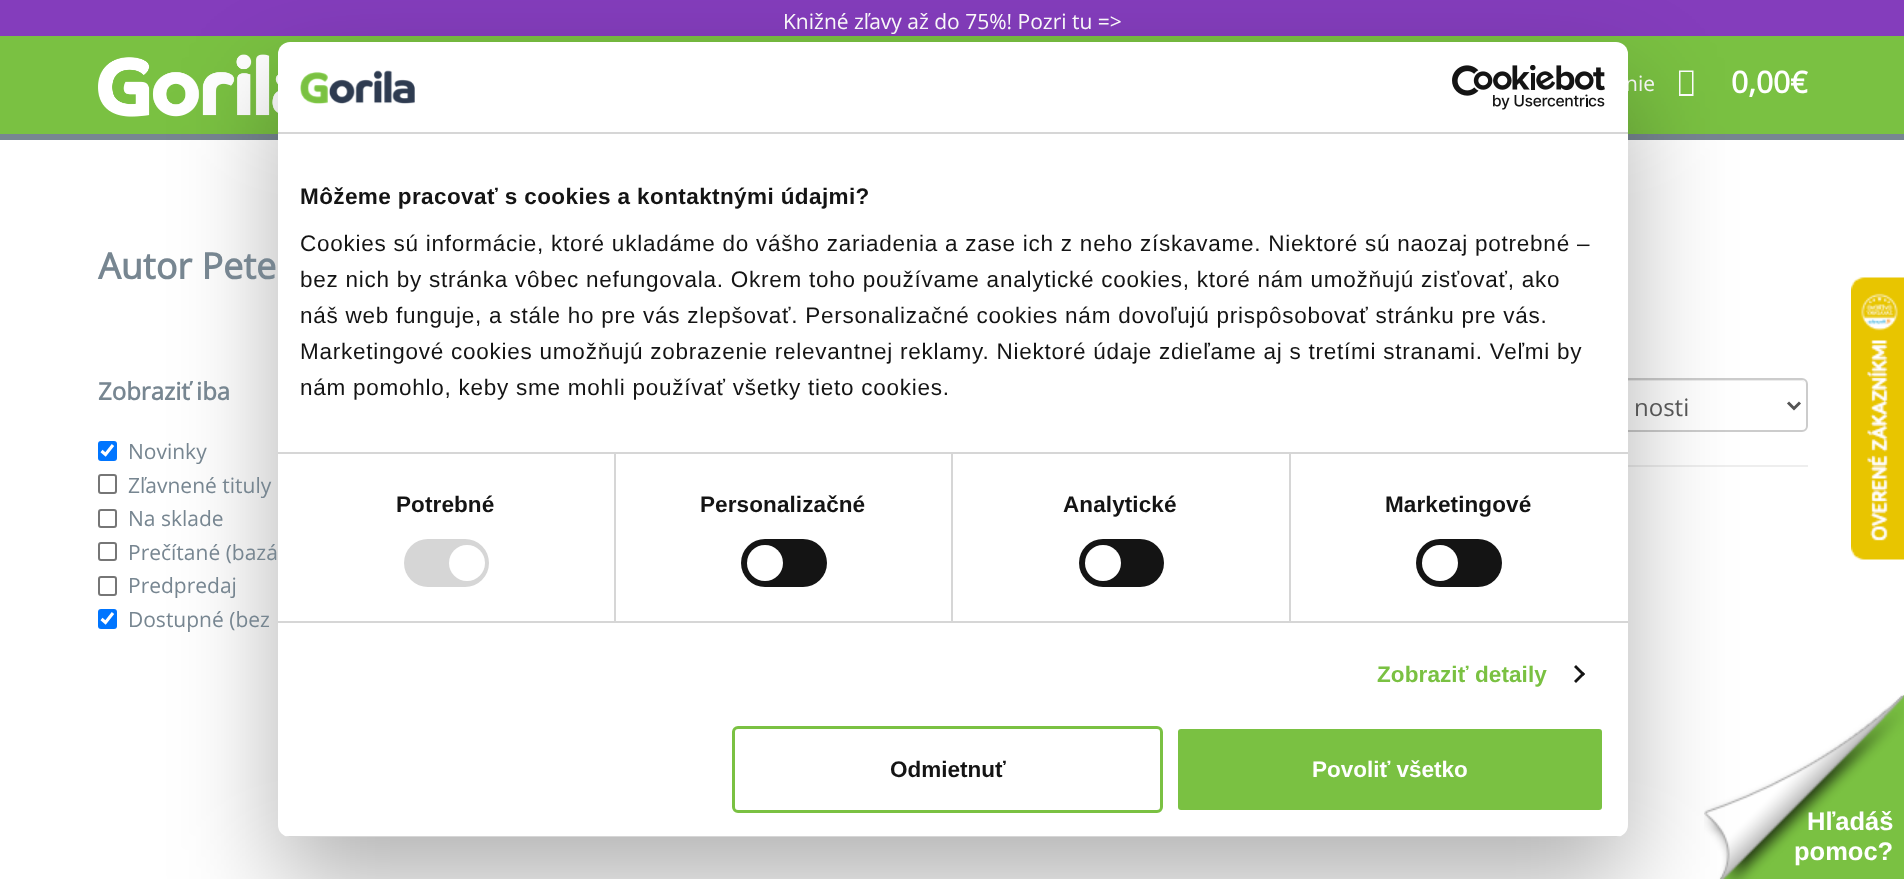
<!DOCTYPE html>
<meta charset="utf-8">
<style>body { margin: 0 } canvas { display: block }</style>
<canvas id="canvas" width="1904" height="879"></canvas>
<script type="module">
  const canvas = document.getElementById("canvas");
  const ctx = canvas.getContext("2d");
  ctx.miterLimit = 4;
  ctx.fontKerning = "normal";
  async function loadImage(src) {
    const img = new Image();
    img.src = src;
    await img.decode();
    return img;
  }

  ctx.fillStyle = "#ffffff";
  ctx.fillRect(0, 0, 1904, 879);
  ctx.fillStyle = "#843dbc";
  ctx.fillRect(0, 0, 1904, 36);
  ctx.font = "21px Open Sans";
  ctx.fillStyle = "#ffffff";
  ctx.fillText("Knižné zľavy až do 75%! Pozri tu =>", 783, 29);
  ctx.fillStyle = "#7ac142";
  ctx.fillRect(0, 36, 1904, 98);
  ctx.fillStyle = "#778691";
  ctx.fillRect(0, 134, 1904, 6);
  ctx.drawImage(await loadImage("img1.png"), 98, 54, 180, 63);
  ctx.fillStyle = "#ffffff";
  ctx.fillText("nie", 1625, 91);
  ctx.beginPath();
  ctx.moveTo(1679, 96);
  ctx.lineTo(1679, 70.5);
  ctx.lineTo(1693.5, 70.5);
  ctx.lineTo(1693.5, 96);
  ctx.closePath();
  ctx.moveTo(1680.5, 94);
  ctx.lineTo(1692, 94);
  ctx.lineTo(1692, 72);
  ctx.lineTo(1680.5, 72);
  ctx.closePath();
  ctx.fill();
  ctx.font = "bold 30px Open Sans";
  ctx.fillText("0,00€", 1731, 93);
  ctx.fillStyle = "#ececec";
  ctx.beginPath();
  ctx.moveTo(1536, 381);
  ctx.lineTo(1802, 381);
  ctx.lineTo(1805, 382);
  ctx.lineTo(1806, 386);
  ctx.bezierCurveTo(1806, 383, 1804, 380, 1801, 380);
  ctx.lineTo(1537, 380);
  ctx.bezierCurveTo(1534, 380, 1532, 383, 1532, 386);
  ctx.bezierCurveTo(1532, 383, 1534, 381, 1536, 381);
  ctx.closePath();
  ctx.fill();
  ctx.beginPath();
  ctx.roundRect(1531, 379, 276, 52, 5);
  ctx.strokeStyle = "#cccccc";
  ctx.lineWidth = 2;
  ctx.stroke();
  ctx.fillStyle = "#eeeeee";
  ctx.fillRect(1628, 465, 180, 2);
  ctx.fillStyle = "#7ac142";
  ctx.beginPath();
  ctx.moveTo(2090, 879);
  ctx.lineTo(1720, 879);
  ctx.lineTo(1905, 694);
  ctx.closePath();
  ctx.fill();
  ctx.drawImage(await loadImage("img5.png"), 1704, 694, 200, 185);
  ctx.fillStyle = "rgba(0, 0, 0, 0.3)";
  ctx.filter = "blur(51px)";
  ctx.beginPath();
  ctx.roundRect(278, 90, 1350, 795, 12);
  ctx.fill();
  ctx.filter = "none";
  ctx.fillStyle = "#ffffff";
  ctx.beginPath();
  ctx.roundRect(278, 42, 1350, 795, 12);
  ctx.fill();
  ctx.fillStyle = "#d6d6d6";
  ctx.fillRect(278, 132, 1350, 2);
  ctx.drawImage(await loadImage("img2.png"), 300, 70, 115, 34);
  ctx.drawImage(await loadImage("img3.png"), 1452, 65, 153, 45);
  ctx.fillRect(614, 453, 2, 168);
  ctx.fillRect(951, 453, 2, 168);
  ctx.fillRect(1289, 453, 2, 168);
  ctx.fillRect(278, 452, 1350, 2);
  ctx.letterSpacing = "0.4px";
  ctx.font = "bold 22.5px Liberation Sans";
  ctx.fillStyle = "#141414";
  ctx.fillText("Môžeme pracovať s cookies a kontaktnými údajmi?", 300, 204);
  ctx.letterSpacing = "0.75px";
  ctx.font = "22.5px Liberation Sans";
  ctx.fillText("Cookies sú informácie, ktoré ukladáme do vášho zariadenia a zase ich z neho získavame. Niektoré sú naozaj potrebné –", 300, 251);
  ctx.fillText("bez nich by stránka vôbec nefungovala. Okrem toho používame analytické cookies, ktoré nám umožňujú zisťovať, ako", 300, 287);
  ctx.fillText("náš web funguje, a stále ho pre vás zlepšovať. Personalizačné cookies nám dovoľujú prispôsobovať stránku pre vás.", 300, 323);
  ctx.fillText("Marketingové cookies umožňujú zobrazenie relevantnej reklamy. Niektoré údaje zdieľame aj s tretími stranami. Veľmi by", 300, 359);
  ctx.fillText("nám pomohlo, keby sme mohli používať všetky tieto cookies.", 300, 395);
  ctx.fillStyle = "#d6d6d6";
  ctx.fillRect(278, 621, 1350, 2);
  ctx.letterSpacing = "0.1px";
  ctx.font = "bold 22.5px Liberation Sans";
  ctx.fillStyle = "#141414";
  ctx.fillText("Potrebné", 396, 512);
  ctx.fillStyle = "#d6d6d6";
  ctx.beginPath();
  ctx.roundRect(404, 539, 85, 48, 24);
  ctx.fill();
  ctx.fillStyle = "#ffffff";
  ctx.beginPath();
  ctx.arc(467, 563, 18, 0, Math.PI * 2);
  ctx.fill();
  ctx.fillStyle = "#141414";
  ctx.fillText("Personalizačné", 700, 512);
  ctx.beginPath();
  ctx.roundRect(741, 539, 86, 48, 24);
  ctx.fill();
  ctx.fillStyle = "#ffffff";
  ctx.beginPath();
  ctx.arc(765, 563, 18, 0, Math.PI * 2);
  ctx.fill();
  ctx.fillStyle = "#141414";
  ctx.fillText("Analytické", 1063, 512);
  ctx.beginPath();
  ctx.roundRect(1079, 539, 85, 48, 24);
  ctx.fill();
  ctx.fillStyle = "#ffffff";
  ctx.beginPath();
  ctx.arc(1103, 563, 18, 0, Math.PI * 2);
  ctx.fill();
  ctx.fillStyle = "#141414";
  ctx.fillText("Marketingové", 1385, 512);
  ctx.beginPath();
  ctx.roundRect(1416, 539, 86, 48, 24);
  ctx.fill();
  ctx.fillStyle = "#ffffff";
  ctx.beginPath();
  ctx.arc(1440, 563, 18, 0, Math.PI * 2);
  ctx.fill();
  ctx.fillStyle = "#7ac142";
  ctx.fillText("Zobraziť detaily", 1377, 682);
  ctx.fillStyle = "#141414";
  ctx.beginPath();
  ctx.moveTo(1576, 665);
  ctx.lineTo(1585, 674);
  ctx.lineTo(1583, 676);
  ctx.lineTo(1574, 667);
  ctx.closePath();
  ctx.fill();
  ctx.beginPath();
  ctx.moveTo(1583, 672);
  ctx.lineTo(1585, 674);
  ctx.lineTo(1576, 683);
  ctx.lineTo(1574, 681);
  ctx.closePath();
  ctx.fill();
  ctx.save();
  ctx.beginPath();
  ctx.roundRect(278, 42, 1350, 795, 12);
  ctx.clip();
  ctx.fillStyle = "#d6d6d6";
  ctx.fillRect(278, 836, 1350, 1);
  ctx.restore();
  ctx.beginPath();
  ctx.roundRect(733.5, 727.5, 428, 84, 4.5);
  ctx.strokeStyle = "#7ac142";
  ctx.lineWidth = 3;
  ctx.stroke();
  ctx.letterSpacing = "0px";
  ctx.fillText("Odmietnuť", 890, 777);
  ctx.fillStyle = "#7ac142";
  ctx.beginPath();
  ctx.roundRect(1176.5, 727.5, 427, 84, 4.5);
  ctx.fill();
  ctx.strokeStyle = "#ffffff";
  ctx.stroke();
  ctx.fillStyle = "#ffffff";
  ctx.fillText("Povoliť všetko", 1312, 777);
  ctx.font = "bold 36px Open Sans";
  ctx.fillStyle = "#778691";
  ctx.fillText("Autor Pete", 98, 279);
  ctx.font = "bold 24px Open Sans";
  ctx.fillText("Zobraziť iba", 98, 400);
  ctx.fillStyle = "#0075ff";
  ctx.beginPath();
  ctx.roundRect(98, 441, 19, 20, 3);
  ctx.fill();
  ctx.beginPath();
  ctx.moveTo(101.5, 451);
  ctx.lineTo(105.5, 454.5);
  ctx.lineTo(113, 445);
  ctx.lineWidth = 3.1;
  ctx.stroke();
  ctx.font = "21px Open Sans";
  ctx.fillStyle = "#778691";
  ctx.fillText("Novinky", 128, 459);
  ctx.beginPath();
  ctx.roundRect(99, 475, 17, 18, 2);
  ctx.strokeStyle = "#767676";
  ctx.lineWidth = 2;
  ctx.stroke();
  ctx.fillText("Zľavnené tituly", 128, 493);
  ctx.beginPath();
  ctx.roundRect(99, 510, 17, 17, 2);
  ctx.stroke();
  ctx.fillText("Na sklade", 128, 526);
  ctx.beginPath();
  ctx.roundRect(99, 543, 17, 17, 2);
  ctx.stroke();
  ctx.fillText("Prečítané (bazá", 128, 560);
  ctx.beginPath();
  ctx.roundRect(99, 577, 17, 18, 2);
  ctx.stroke();
  ctx.fillText("Predpredaj", 128, 593);
  ctx.fillStyle = "#0075ff";
  ctx.beginPath();
  ctx.roundRect(98, 609, 19, 20, 3);
  ctx.fill();
  ctx.beginPath();
  ctx.moveTo(101.5, 619);
  ctx.lineTo(105.5, 622.5);
  ctx.lineTo(113, 613);
  ctx.strokeStyle = "#ffffff";
  ctx.lineWidth = 3.1;
  ctx.stroke();
  ctx.fillStyle = "#778691";
  ctx.fillText("Dostupné (bez", 128, 627);
  ctx.beginPath();
  ctx.moveTo(1788, 402.5);
  ctx.lineTo(1794, 408.5);
  ctx.lineTo(1800, 402.5);
  ctx.strokeStyle = "#555555";
  ctx.lineWidth = 3;
  ctx.stroke();
  ctx.font = "24px Open Sans";
  ctx.fillStyle = "#555555";
  ctx.fillText("nosti", 1634, 416);
  ctx.drawImage(await loadImage("img4.png"), 1851, 277, 53, 283);
  ctx.font = "bold 25.5px Liberation Sans";
  ctx.fillStyle = "#ffffff";
  ctx.fillText("Hľadáš", 1807, 830);
  ctx.fillText("pomoc?", 1794, 860);
</script>
